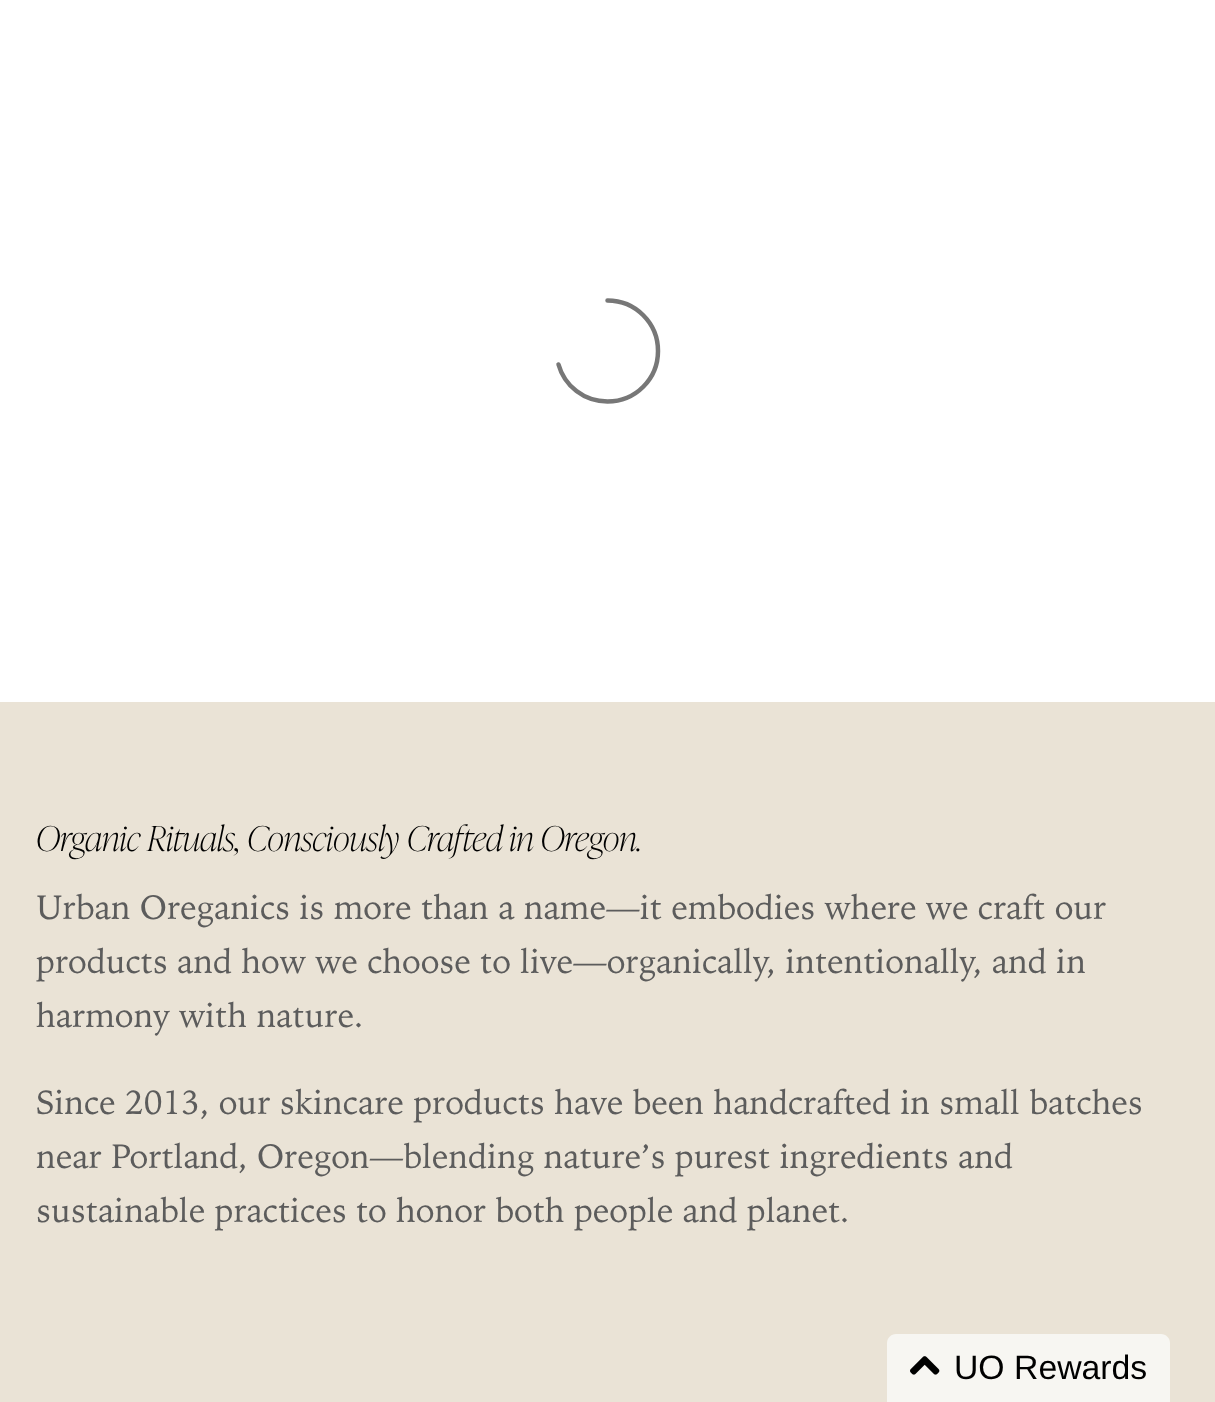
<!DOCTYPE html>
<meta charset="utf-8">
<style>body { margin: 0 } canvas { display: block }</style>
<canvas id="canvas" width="1215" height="1402"></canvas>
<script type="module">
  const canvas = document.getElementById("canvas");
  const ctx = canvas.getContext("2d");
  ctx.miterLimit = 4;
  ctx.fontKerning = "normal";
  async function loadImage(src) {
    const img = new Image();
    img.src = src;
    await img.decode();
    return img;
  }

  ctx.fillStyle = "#ffffff";
  ctx.fillRect(0, 0, 1215, 1402);
  ctx.beginPath();
  ctx.moveTo(607.5, 300.5);
  ctx.bezierCurveTo(635.5, 300.5, 658, 323, 658, 351);
  ctx.bezierCurveTo(658, 379, 635.5, 401.5, 607.5, 401.5);
  ctx.bezierCurveTo(584, 401.5, 564.5, 386, 558.5, 364.5);
  ctx.strokeStyle = "#777777";
  ctx.lineWidth = 4.5;
  ctx.lineCap = "round";
  ctx.stroke();
  ctx.fillStyle = "#eae3d6";
  ctx.fillRect(0, 702, 1215, 700);
  ctx.font = "italic 100 34.25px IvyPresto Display";
  ctx.fillStyle = "#000000";
  ctx.fillText("Organic Rituals, Consciously Crafted in Oregon.", 36, 851);
  ctx.font = "33.75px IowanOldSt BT";
  ctx.fillStyle = "#5c5c5c";
  ctx.fillText("Urban Oreganics is more than a name—it embodies where we craft our", 36, 919);
  ctx.fillText("products and how we choose to live—organically, intentionally, and in", 36, 973);
  ctx.fillText("harmony with nature.", 36, 1027);
  ctx.fillText("Since 2013, our skincare products have been handcrafted in small batches", 36, 1114);
  ctx.fillText("near Portland, Oregon—blending nature’s purest ingredients and", 36, 1168);
  ctx.fillText("sustainable practices to honor both people and planet.", 36, 1222);
  ctx.fillStyle = "#f7f6f2";
  ctx.beginPath();
  ctx.moveTo(896, 1334);
  ctx.lineTo(1161, 1334);
  ctx.bezierCurveTo(1166, 1334, 1170, 1338, 1170, 1343);
  ctx.lineTo(1170, 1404);
  ctx.lineTo(887, 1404);
  ctx.lineTo(887, 1343);
  ctx.bezierCurveTo(887, 1338, 891, 1334, 896, 1334);
  ctx.closePath();
  ctx.fill();
  ctx.drawImage(await loadImage("img1.png"), 910, 1356, 30, 19);
  ctx.font = "33.75px Liberation Sans";
  ctx.fillStyle = "#000000";
  ctx.fillText("UO Rewards", 954, 1379);
</script>
